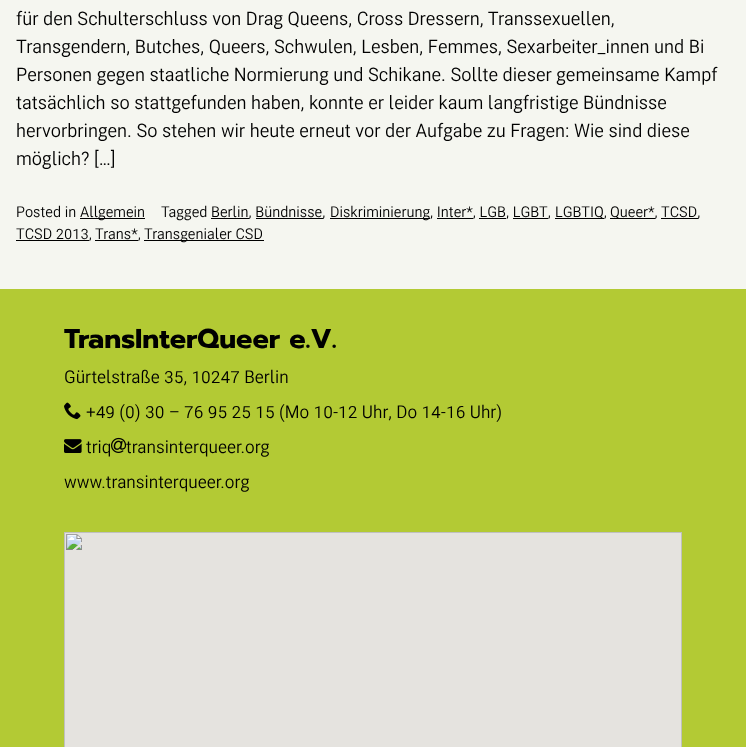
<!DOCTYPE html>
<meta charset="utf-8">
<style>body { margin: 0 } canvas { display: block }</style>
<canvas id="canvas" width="746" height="747"></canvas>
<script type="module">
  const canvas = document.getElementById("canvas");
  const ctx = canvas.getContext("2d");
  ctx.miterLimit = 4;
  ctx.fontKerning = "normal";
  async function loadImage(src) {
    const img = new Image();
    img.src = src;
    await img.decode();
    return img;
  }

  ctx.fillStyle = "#f5f6f0";
  ctx.fillRect(0, 0, 746, 747);
  ctx.font = "18.65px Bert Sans";
  ctx.fillStyle = "#000000";
  ctx.fillText("für den Schulterschluss von Drag Queens, Cross Dressern, Transsexuellen,", 16, 25);
  ctx.fillText("Transgendern, Butches, Queers, Schwulen, Lesben, Femmes, Sexarbeiter_innen und Bi", 16, 53);
  ctx.fillText("Personen gegen staatliche Normierung und Schikane. Sollte dieser gemeinsame Kampf", 16, 81);
  ctx.fillText("tatsächlich so stattgefunden haben, konnte er leider kaum langfristige Bündnisse", 16, 109);
  ctx.fillText("hervorbringen. So stehen wir heute erneut vor der Aufgabe zu Fragen: Wie sind diese", 16, 137);
  ctx.fillText("möglich? […]", 16, 165);
  ctx.font = "14.9px Bert Sans";
  ctx.fillText("Posted in", 16, 217);
  ctx.fillRect(80, 218, 65, 1);
  ctx.fillText("Allgemein", 80, 217);
  ctx.fillText("Tagged Berlin, Bündnisse,", 161, 217);
  ctx.fillRect(211, 218, 38, 1);
  ctx.fillRect(256, 218, 67, 1);
  ctx.fillRect(330, 218, 100, 1);
  ctx.fillText("Diskriminierung, Inter*, LGB, LGBT,", 330, 217);
  ctx.fillRect(437, 218, 36, 1);
  ctx.fillRect(479, 218, 27, 1);
  ctx.fillRect(513, 218, 35, 1);
  ctx.fillRect(555, 218, 49, 1);
  ctx.fillText("LGBTIQ,", 555, 217);
  ctx.fillRect(610, 218, 45, 1);
  ctx.fillText("Queer*,", 610, 217);
  ctx.fillRect(661, 218, 37, 1);
  ctx.fillText("TCSD,", 661, 217);
  ctx.fillRect(16, 240, 73, 1);
  ctx.fillText("TCSD 2013,", 16, 239);
  ctx.fillRect(95, 240, 43, 1);
  ctx.fillText("Trans*,", 95, 239);
  ctx.fillRect(144, 240, 120, 1);
  ctx.fillText("Transgenialer CSD", 144, 239);
  ctx.fillStyle = "#b3ca34";
  ctx.fillRect(0, 289, 746, 458);
  ctx.font = "bold 27.25px Prompt";
  ctx.fillStyle = "#000000";
  ctx.fillText("TransInterQueer e.V.", 64, 348);
  ctx.font = "17.6px Bert Sans";
  ctx.fillText("Gürtelstraße 35, 10247 Berlin", 64, 383);
  ctx.drawImage(await loadImage("img1.png"), 64, 402, 17, 18);
  ctx.fillText("+49 (0) 30 – 76 95 25 15 (Mo 10-12 Uhr, Do 14-16 Uhr)", 86, 418);
  ctx.drawImage(await loadImage("img2.png"), 64, 439, 18, 14);
  ctx.fillText("triq", 86, 453);
  ctx.drawImage(await loadImage("img3.png"), 111, 437, 16, 16);
  ctx.fillText("transinterqueer.org", 126, 453);
  ctx.fillText("www.transinterqueer.org", 64, 488);
  ctx.drawImage(await loadImage("img4.png"), 64, 532, 618, 215);
</script>
